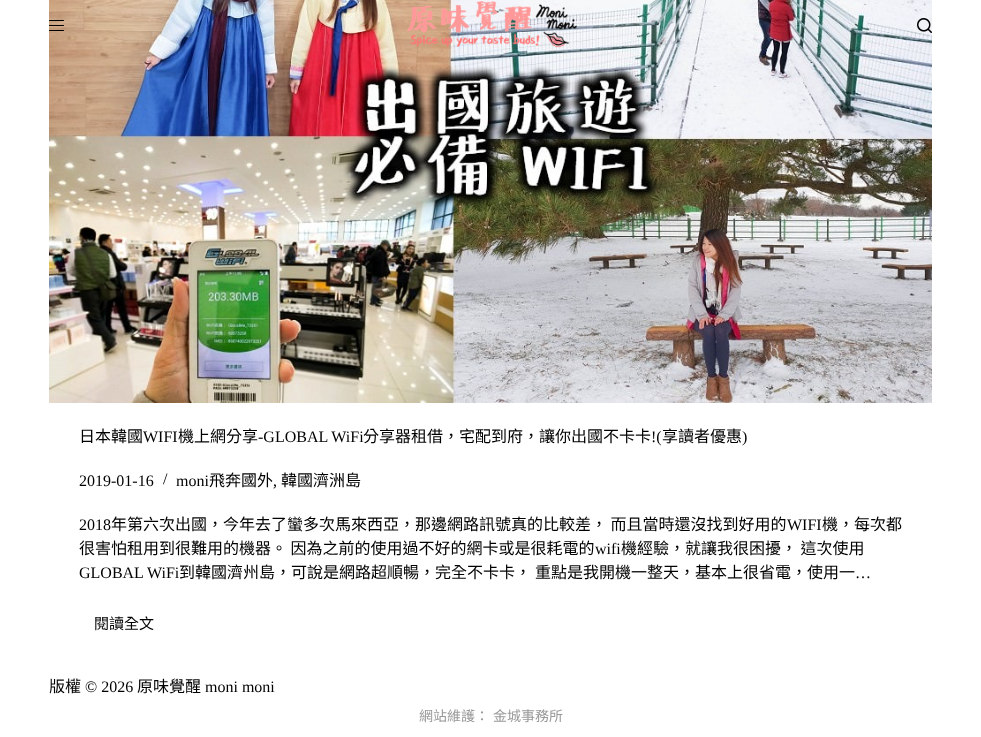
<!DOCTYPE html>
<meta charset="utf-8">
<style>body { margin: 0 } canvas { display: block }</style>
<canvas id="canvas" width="981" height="737"></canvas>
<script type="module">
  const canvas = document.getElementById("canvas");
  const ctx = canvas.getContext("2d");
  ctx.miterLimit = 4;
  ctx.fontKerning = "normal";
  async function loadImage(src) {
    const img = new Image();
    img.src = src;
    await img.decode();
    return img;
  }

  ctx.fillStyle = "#ffffff";
  ctx.fillRect(0, 0, 981, 737);
  ctx.drawImage(await loadImage("img3.png"), 49, 0, 883, 403);
  ctx.fillStyle = "#000000";
  ctx.beginPath();
  ctx.roundRect(49, 20, 15, 1, 0.5);
  ctx.fill();
  ctx.beginPath();
  ctx.roundRect(49, 25, 15, 1, 0.5);
  ctx.fill();
  ctx.beginPath();
  ctx.roundRect(49, 30, 15, 1, 0.5);
  ctx.fill();
  ctx.drawImage(await loadImage("img1.png"), 407, 1, 171, 47);
  ctx.drawImage(await loadImage("img2.png"), 917, 18, 15, 15);
  ctx.font = "16px Noto Sans CJK TC";
  ctx.fillText("日本韓國", 79, 442);
  ctx.font = "16px Liberation Serif";
  ctx.fillText("WIFI", 143, 442);
  ctx.font = "16px Noto Sans CJK TC";
  ctx.fillText("機上網分享", 178, 442);
  ctx.font = "16px Liberation Serif";
  ctx.fillText("-GLOBAL WiFi", 258, 442);
  ctx.font = "16px Noto Sans CJK TC";
  ctx.fillText("分享器租借，宅配到府，讓你出國不卡卡", 363, 442);
  ctx.font = "16px Liberation Serif";
  ctx.fillText("!(", 651, 442);
  ctx.font = "16px Noto Sans CJK TC";
  ctx.fillText("享讀者優惠", 662, 442);
  ctx.font = "16px Liberation Serif";
  ctx.fillText(")", 742, 442);
  ctx.fillText("2019-01-16", 79, 486);
  ctx.fillText("/", 163, 484);
  ctx.fillText("moni", 176, 486);
  ctx.font = "16px Noto Sans CJK TC";
  ctx.fillText("飛奔國外", 209, 486);
  ctx.font = "16px Liberation Serif";
  ctx.fillText(",", 273, 486);
  ctx.font = "16px Noto Sans CJK TC";
  ctx.fillText("韓國濟洲島", 281, 486);
  ctx.font = "16px Liberation Serif";
  ctx.fillText("2018", 79, 530);
  ctx.font = "16px Noto Sans CJK TC";
  ctx.fillText("年第六次出國，今年去了蠻多次馬來西亞，那邊網路訊號真的比較差， 而且當時還沒找到好用的", 111, 530);
  ctx.font = "16px Liberation Serif";
  ctx.fillText("WIFI", 787, 530);
  ctx.font = "16px Noto Sans CJK TC";
  ctx.fillText("機，每次都", 822, 530);
  ctx.fillText("很害怕租用到很難用的機器。 因為之前的使用過不好的網卡或是很耗電的", 79, 554);
  ctx.font = "16px Liberation Serif";
  ctx.fillText("wifi", 595, 554);
  ctx.font = "16px Noto Sans CJK TC";
  ctx.fillText("機經驗，就讓我很困擾， 這次使用", 621, 554);
  ctx.font = "16px Liberation Serif";
  ctx.fillText("GLOBAL WiFi", 79, 578);
  ctx.font = "16px Noto Sans CJK TC";
  ctx.fillText("到韓國濟州島，可說是網路超順暢，完全不卡卡，", 179, 578);
  ctx.fillText("重點是我開機一整天，基本上很省電，使用一", 535, 578);
  ctx.font = "16px Liberation Serif";
  ctx.fillText("…", 855, 578);
  ctx.font = "15px Noto Sans CJK TC";
  ctx.fillText("閱讀全文", 94, 629);
  ctx.font = "16px Noto Sans CJK TC";
  ctx.fillText("版權", 49, 692);
  ctx.font = "16px Liberation Serif";
  ctx.fillText("© 2026", 85, 692);
  ctx.font = "16px Noto Sans CJK TC";
  ctx.fillText("原味覺醒", 137, 692);
  ctx.font = "16px Liberation Serif";
  ctx.fillText("moni moni", 205, 692);
  ctx.font = "14px Noto Sans CJK TC";
  ctx.fillStyle = "#999999";
  ctx.fillText("網站維護：", 419, 721);
  ctx.fillText("金城事務所", 493, 721);
</script>
